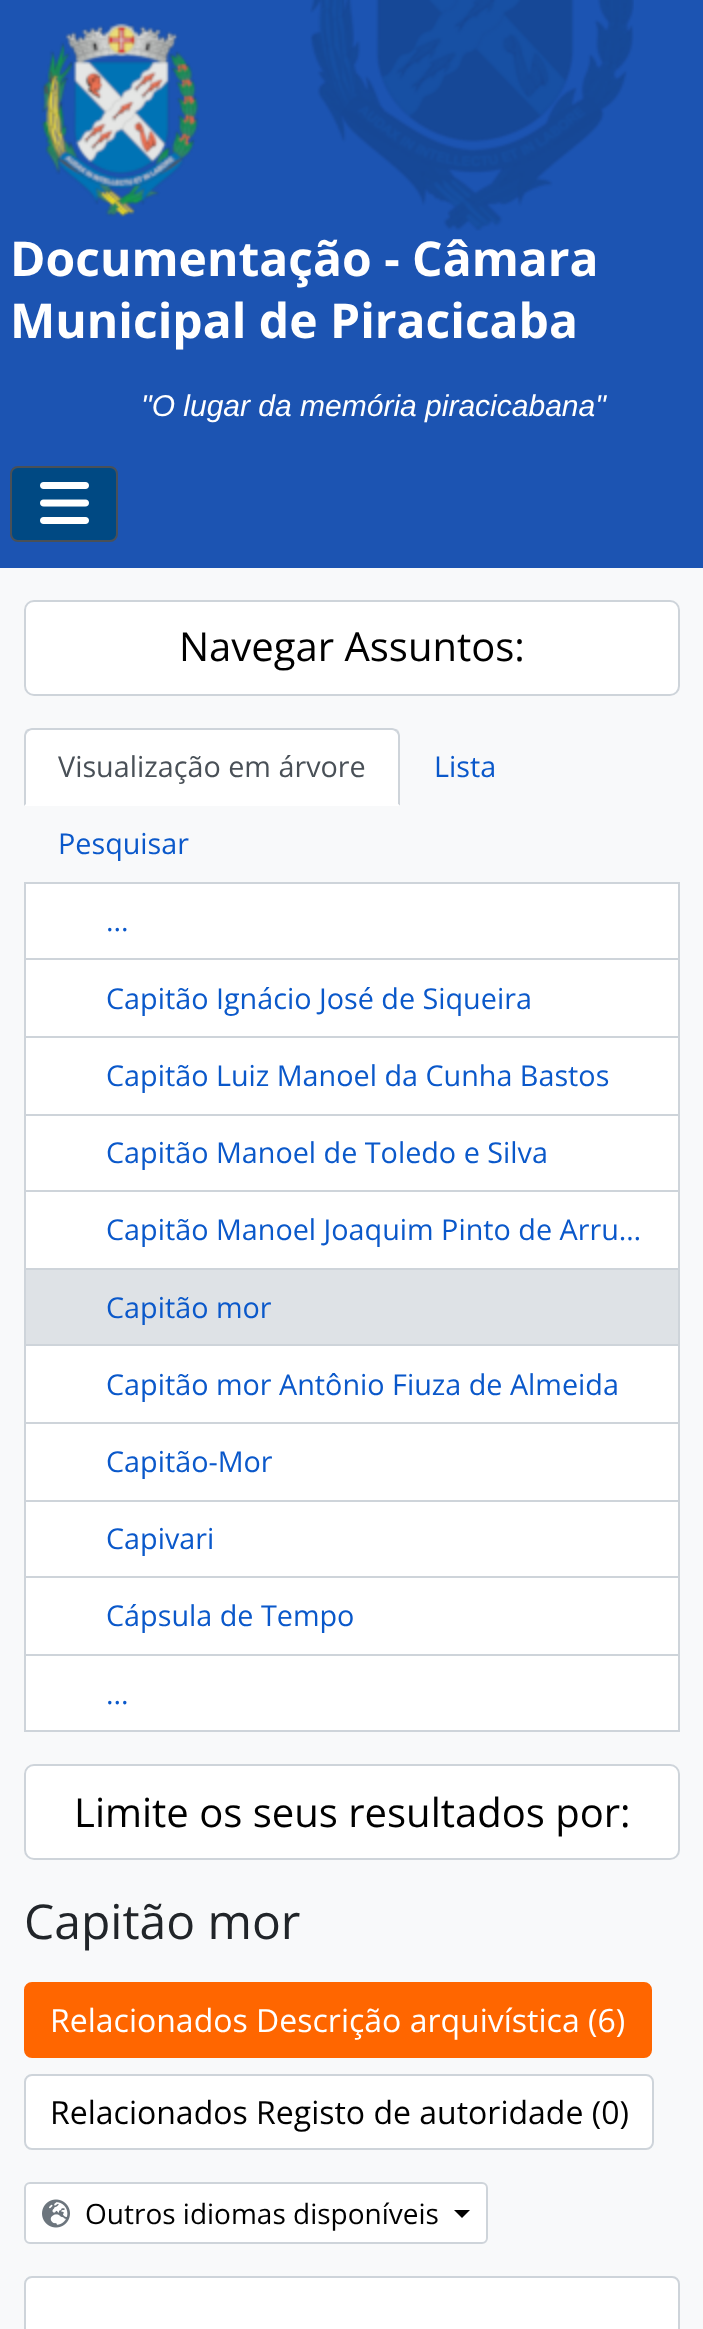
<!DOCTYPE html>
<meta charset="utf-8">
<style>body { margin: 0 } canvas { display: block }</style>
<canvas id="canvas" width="703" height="2329"></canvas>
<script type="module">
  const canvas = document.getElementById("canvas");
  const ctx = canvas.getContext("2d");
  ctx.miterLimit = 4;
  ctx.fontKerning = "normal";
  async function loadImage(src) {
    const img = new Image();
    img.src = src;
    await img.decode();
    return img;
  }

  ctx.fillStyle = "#f8f9fa";
  ctx.fillRect(0, 0, 703, 2329);
  ctx.fillStyle = "#1c54b2";
  ctx.fillRect(0, 0, 703, 568);
  ctx.drawImage(await loadImage("img1.png"), 310, 0, 324, 231);
  ctx.drawImage(await loadImage("img2.png"), 41, 23, 158, 194);
  ctx.font = "bold 48px Open Sans";
  ctx.fillStyle = "#ffffff";
  ctx.fillText("Documentação - Câmara", 10, 276);
  ctx.fillText("Municipal de Piracicaba", 10, 338);
  ctx.font = "italic 30px Liberation Sans";
  ctx.fillText("\"O lugar da memória piracicabana\"", 141, 416);
  ctx.fillStyle = "#004983";
  ctx.beginPath();
  ctx.roundRect(11, 467, 106, 74, 7);
  ctx.fill();
  ctx.strokeStyle = "#495057";
  ctx.lineWidth = 2;
  ctx.stroke();
  ctx.drawImage(await loadImage("img3.png"), 40, 482, 49, 42);
  ctx.fillStyle = "#ffffff";
  ctx.beginPath();
  ctx.roundRect(25, 601, 654, 94, 9);
  ctx.fill();
  ctx.strokeStyle = "#ced4da";
  ctx.stroke();
  ctx.font = "40px Open Sans";
  ctx.fillStyle = "#000000";
  ctx.fillText("Navegar Assuntos:", 179, 661);
  ctx.fillStyle = "#ffffff";
  ctx.beginPath();
  ctx.roundRect(24, 728, 376, 78, [8, 8, 0, 0]);
  ctx.fill();
  ctx.fillStyle = "#ced4da";
  ctx.beginPath();
  ctx.moveTo(32, 728);
  ctx.bezierCurveTo(30, 728, 28, 729, 26, 730);
  ctx.lineTo(28, 732);
  ctx.bezierCurveTo(29, 731, 30, 730, 32, 730);
  ctx.lineTo(392, 730);
  ctx.bezierCurveTo(394, 730, 395, 731, 396, 732);
  ctx.lineTo(398, 730);
  ctx.bezierCurveTo(396, 729, 394, 728, 392, 728);
  ctx.closePath();
  ctx.fill();
  ctx.beginPath();
  ctx.moveTo(400, 806);
  ctx.lineTo(400, 736);
  ctx.bezierCurveTo(400, 734, 399, 732, 398, 730);
  ctx.lineTo(396, 732);
  ctx.bezierCurveTo(397, 733, 398, 734, 398, 736);
  ctx.lineTo(398, 804);
  ctx.closePath();
  ctx.fill();
  ctx.fillStyle = "#ffffff";
  ctx.beginPath();
  ctx.moveTo(400, 806);
  ctx.lineTo(398, 804);
  ctx.lineTo(26, 804);
  ctx.lineTo(24, 806);
  ctx.closePath();
  ctx.fill();
  ctx.fillStyle = "#ced4da";
  ctx.beginPath();
  ctx.moveTo(24, 806);
  ctx.lineTo(26, 804);
  ctx.lineTo(26, 736);
  ctx.bezierCurveTo(26, 734, 27, 733, 28, 732);
  ctx.lineTo(26, 730);
  ctx.bezierCurveTo(25, 732, 24, 734, 24, 736);
  ctx.closePath();
  ctx.fill();
  ctx.font = "28.75px Open Sans";
  ctx.fillStyle = "#495057";
  ctx.fillText("Visualização em árvore", 58, 777);
  ctx.fillStyle = "#0a58ca";
  ctx.fillText("Lista", 434, 777);
  ctx.fillText("Pesquisar", 58, 854);
  ctx.fillStyle = "#ced4da";
  ctx.fillRect(24, 882, 656, 2);
  ctx.fillStyle = "#ffffff";
  ctx.fillRect(26, 884, 652, 74);
  ctx.fillStyle = "#ced4da";
  ctx.fillRect(678, 884, 2, 386);
  ctx.fillRect(24, 958, 656, 2);
  ctx.fillRect(24, 884, 2, 76);
  ctx.fillStyle = "#0a58ca";
  ctx.fillText("...", 106, 931);
  ctx.fillStyle = "#ffffff";
  ctx.fillRect(26, 960, 652, 76);
  ctx.fillStyle = "#ced4da";
  ctx.fillRect(24, 1036, 656, 2);
  ctx.fillRect(24, 960, 2, 78);
  ctx.fillStyle = "#0a58ca";
  ctx.fillText("Capitão Ignácio José de Siqueira", 106, 1009);
  ctx.fillStyle = "#ffffff";
  ctx.fillRect(26, 1038, 652, 76);
  ctx.fillStyle = "#ced4da";
  ctx.fillRect(24, 1114, 656, 2);
  ctx.fillRect(24, 1038, 2, 78);
  ctx.fillStyle = "#0a58ca";
  ctx.fillText("Capitão Luiz Manoel da Cunha Bastos", 106, 1086);
  ctx.fillStyle = "#ffffff";
  ctx.fillRect(26, 1116, 652, 74);
  ctx.fillStyle = "#ced4da";
  ctx.fillRect(24, 1190, 656, 2);
  ctx.fillRect(24, 1116, 2, 154);
  ctx.fillStyle = "#0a58ca";
  ctx.fillText("Capitão Manoel de Toledo e Silva", 106, 1163);
  ctx.fillStyle = "#ffffff";
  ctx.fillRect(26, 1192, 652, 76);
  ctx.fillStyle = "#0a58ca";
  ctx.fillText("Capitão Manoel Joaquim Pinto de Arru…", 106, 1240);
  ctx.fillStyle = "#dee2e6";
  ctx.beginPath();
  ctx.rect(25, 1269, 654, 76);
  ctx.fill();
  ctx.stroke();
  ctx.fillStyle = "#0a58ca";
  ctx.fillText("Capitão mor", 106, 1318);
  ctx.fillStyle = "#ffffff";
  ctx.fillRect(26, 1346, 652, 76);
  ctx.fillStyle = "#ced4da";
  ctx.fillRect(678, 1346, 2, 386);
  ctx.fillRect(24, 1422, 656, 2);
  ctx.fillRect(24, 1346, 2, 78);
  ctx.fillStyle = "#0a58ca";
  ctx.fillText("Capitão mor Antônio Fiuza de Almeida", 106, 1395);
  ctx.fillStyle = "#ffffff";
  ctx.fillRect(26, 1424, 652, 76);
  ctx.fillStyle = "#ced4da";
  ctx.fillRect(24, 1500, 656, 2);
  ctx.fillRect(24, 1424, 2, 78);
  ctx.save();
  ctx.beginPath();
  ctx.rect(106, 1440, 166, 44);
  ctx.clip();
  ctx.fillStyle = "#0a58ca";
  ctx.fillText("Capitão-Mor", 106, 1472);
  ctx.restore();
  ctx.fillStyle = "#ffffff";
  ctx.fillRect(26, 1502, 652, 74);
  ctx.fillStyle = "#ced4da";
  ctx.fillRect(24, 1576, 656, 2);
  ctx.fillRect(24, 1502, 2, 76);
  ctx.fillStyle = "#0a58ca";
  ctx.fillText("Capivari", 106, 1549);
  ctx.fillStyle = "#ffffff";
  ctx.fillRect(26, 1578, 652, 76);
  ctx.fillStyle = "#ced4da";
  ctx.fillRect(24, 1654, 656, 2);
  ctx.fillRect(24, 1578, 2, 78);
  ctx.fillStyle = "#0a58ca";
  ctx.fillText("Cápsula de Tempo", 106, 1626);
  ctx.fillStyle = "#ffffff";
  ctx.fillRect(26, 1656, 652, 74);
  ctx.fillStyle = "#ced4da";
  ctx.fillRect(24, 1730, 656, 2);
  ctx.fillRect(24, 1656, 2, 76);
  ctx.fillStyle = "#0a58ca";
  ctx.fillText("...", 106, 1704);
  ctx.fillStyle = "#ffffff";
  ctx.beginPath();
  ctx.roundRect(25, 1765, 654, 94, 9);
  ctx.fill();
  ctx.stroke();
  ctx.font = "40px Open Sans";
  ctx.fillStyle = "#000000";
  ctx.fillText("Limite os seus resultados por:", 74, 1827);
  ctx.font = "48px Open Sans";
  ctx.fillStyle = "#212529";
  ctx.fillText("Capitão mor", 24, 1939);
  ctx.fillStyle = "#ff6600";
  ctx.beginPath();
  ctx.roundRect(25, 1983, 626, 74, 7);
  ctx.fill();
  ctx.strokeStyle = "#ff6600";
  ctx.stroke();
  ctx.font = "32px Open Sans";
  ctx.fillStyle = "#ffffff";
  ctx.fillText("Relacionados Descrição arquivística (6)", 50, 2032);
  ctx.beginPath();
  ctx.roundRect(25, 2075, 628, 74, 7);
  ctx.fill();
  ctx.strokeStyle = "#ced4da";
  ctx.stroke();
  ctx.fillStyle = "#000000";
  ctx.fillText("Relacionados Registo de autoridade (0)", 50, 2124);
  ctx.fillStyle = "#ffffff";
  ctx.beginPath();
  ctx.roundRect(25, 2183, 462, 60, 5);
  ctx.fill();
  ctx.stroke();
  ctx.drawImage(await loadImage("img4.png"), 42, 2199, 28, 29);
  ctx.font = "28px Open Sans";
  ctx.fillStyle = "#000000";
  ctx.fillText("Outros idiomas disponíveis", 85, 2224);
  ctx.beginPath();
  ctx.moveTo(454, 2210);
  ctx.lineTo(470, 2210);
  ctx.lineTo(462, 2218);
  ctx.closePath();
  ctx.fill();
  ctx.fillStyle = "#ffffff";
  ctx.beginPath();
  ctx.roundRect(25, 2277, 654, 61, 7);
  ctx.fill();
  ctx.stroke();
</script>
